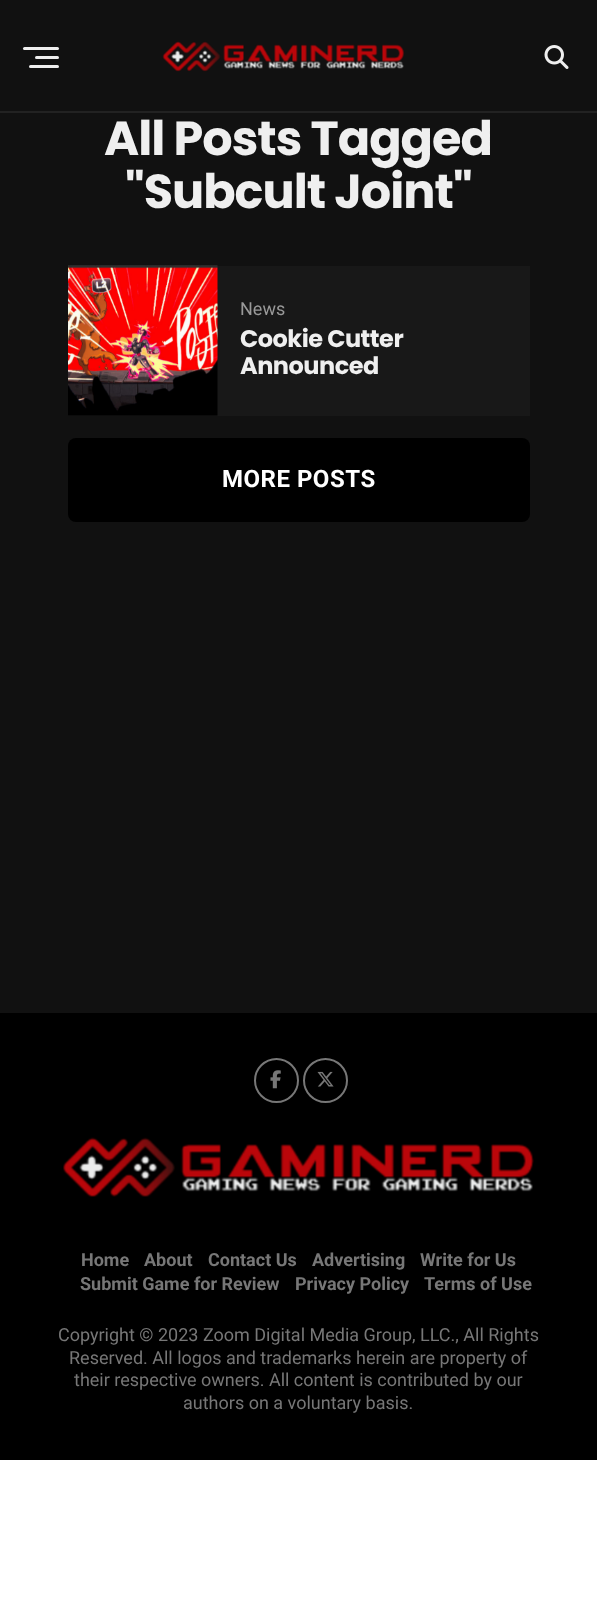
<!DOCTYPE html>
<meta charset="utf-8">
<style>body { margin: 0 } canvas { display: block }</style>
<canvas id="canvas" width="597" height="1610"></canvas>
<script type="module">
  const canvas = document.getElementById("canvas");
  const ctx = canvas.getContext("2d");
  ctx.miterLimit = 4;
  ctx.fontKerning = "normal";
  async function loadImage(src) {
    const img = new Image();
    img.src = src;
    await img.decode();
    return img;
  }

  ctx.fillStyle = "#ffffff";
  ctx.fillRect(0, 0, 597, 1610);
  ctx.fillStyle = "#111111";
  ctx.fillRect(0, 113, 597, 900);
  ctx.fillRect(0, 0, 597, 111);
  ctx.fillStyle = "#222222";
  ctx.fillRect(0, 111, 597, 2);
  ctx.fillStyle = "#efefef";
  ctx.beginPath();
  ctx.roundRect(23, 47, 36, 3, 1.5);
  ctx.fill();
  ctx.beginPath();
  ctx.roundRect(35, 56, 24, 3, 1.5);
  ctx.fill();
  ctx.beginPath();
  ctx.roundRect(29, 65, 30, 3, 1.5);
  ctx.fill();
  ctx.drawImage(await loadImage("img1.png"), 162, 41, 243, 31);
  ctx.drawImage(await loadImage("img2.png"), 544, 45, 25, 24);
  ctx.letterSpacing = "-1px";
  ctx.font = "bold 47.75px Poppins";
  ctx.fillText("All Posts Tagged", 104, 155);
  ctx.fillText("\"Subcult Joint\"", 125, 208);
  ctx.fillStyle = "#181818";
  ctx.fillRect(68, 266, 462, 150);
  ctx.drawImage(await loadImage("img3.png"), 68, 265, 150, 151);
  ctx.letterSpacing = "0px";
  ctx.font = "18px Roboto";
  ctx.fillStyle = "#999999";
  ctx.fillText("News", 240, 315);
  ctx.letterSpacing = "-0.5px";
  ctx.font = "bold 24px Poppins";
  ctx.fillStyle = "#efefef";
  ctx.fillText("Cookie Cutter", 240, 347);
  ctx.fillText("Announced", 240, 374);
  ctx.fillStyle = "#000000";
  ctx.beginPath();
  ctx.roundRect(68, 438, 462, 84, 8);
  ctx.fill();
  ctx.letterSpacing = "0.5px";
  ctx.font = "bold 24px Roboto";
  ctx.fillStyle = "#ffffff";
  ctx.fillText("MORE POSTS", 222, 487);
  ctx.fillStyle = "#000000";
  ctx.fillRect(0, 1013, 597, 447);
  ctx.beginPath();
  ctx.arc(276.5, 1080.5, 21.5, 0, Math.PI * 2);
  ctx.strokeStyle = "#777777";
  ctx.lineWidth = 2;
  ctx.stroke();
  ctx.drawImage(await loadImage("img4.png"), 270, 1070, 11, 19);
  ctx.beginPath();
  ctx.arc(325.5, 1080.5, 21.5, 0, Math.PI * 2);
  ctx.stroke();
  ctx.drawImage(await loadImage("img5.png"), 317, 1071, 17, 16);
  ctx.drawImage(await loadImage("img6.png"), 63, 1137, 471, 60);
  ctx.letterSpacing = "0px";
  ctx.font = "bold 18px Roboto";
  ctx.fillStyle = "#777777";
  ctx.fillText("Home", 81, 1266);
  ctx.fillText("About", 144, 1266);
  ctx.fillText("Contact Us", 208, 1266);
  ctx.fillText("Advertising", 312, 1266);
  ctx.fillText("Write for Us", 420, 1266);
  ctx.fillText("Submit Game for Review", 80, 1290);
  ctx.fillText("Privacy Policy", 295, 1290);
  ctx.fillText("Terms of Use", 424, 1290);
  ctx.font = "18px Roboto";
  ctx.fillText("Copyright © 2023 Zoom Digital Media Group, LLC., All Rights", 58, 1341);
  ctx.fillText("Reserved. All logos and trademarks herein are property of", 69, 1364);
  ctx.fillText("their respective owners. All content is contributed by our", 74, 1386);
  ctx.fillText("authors on a voluntary basis.", 183, 1409);
</script>
